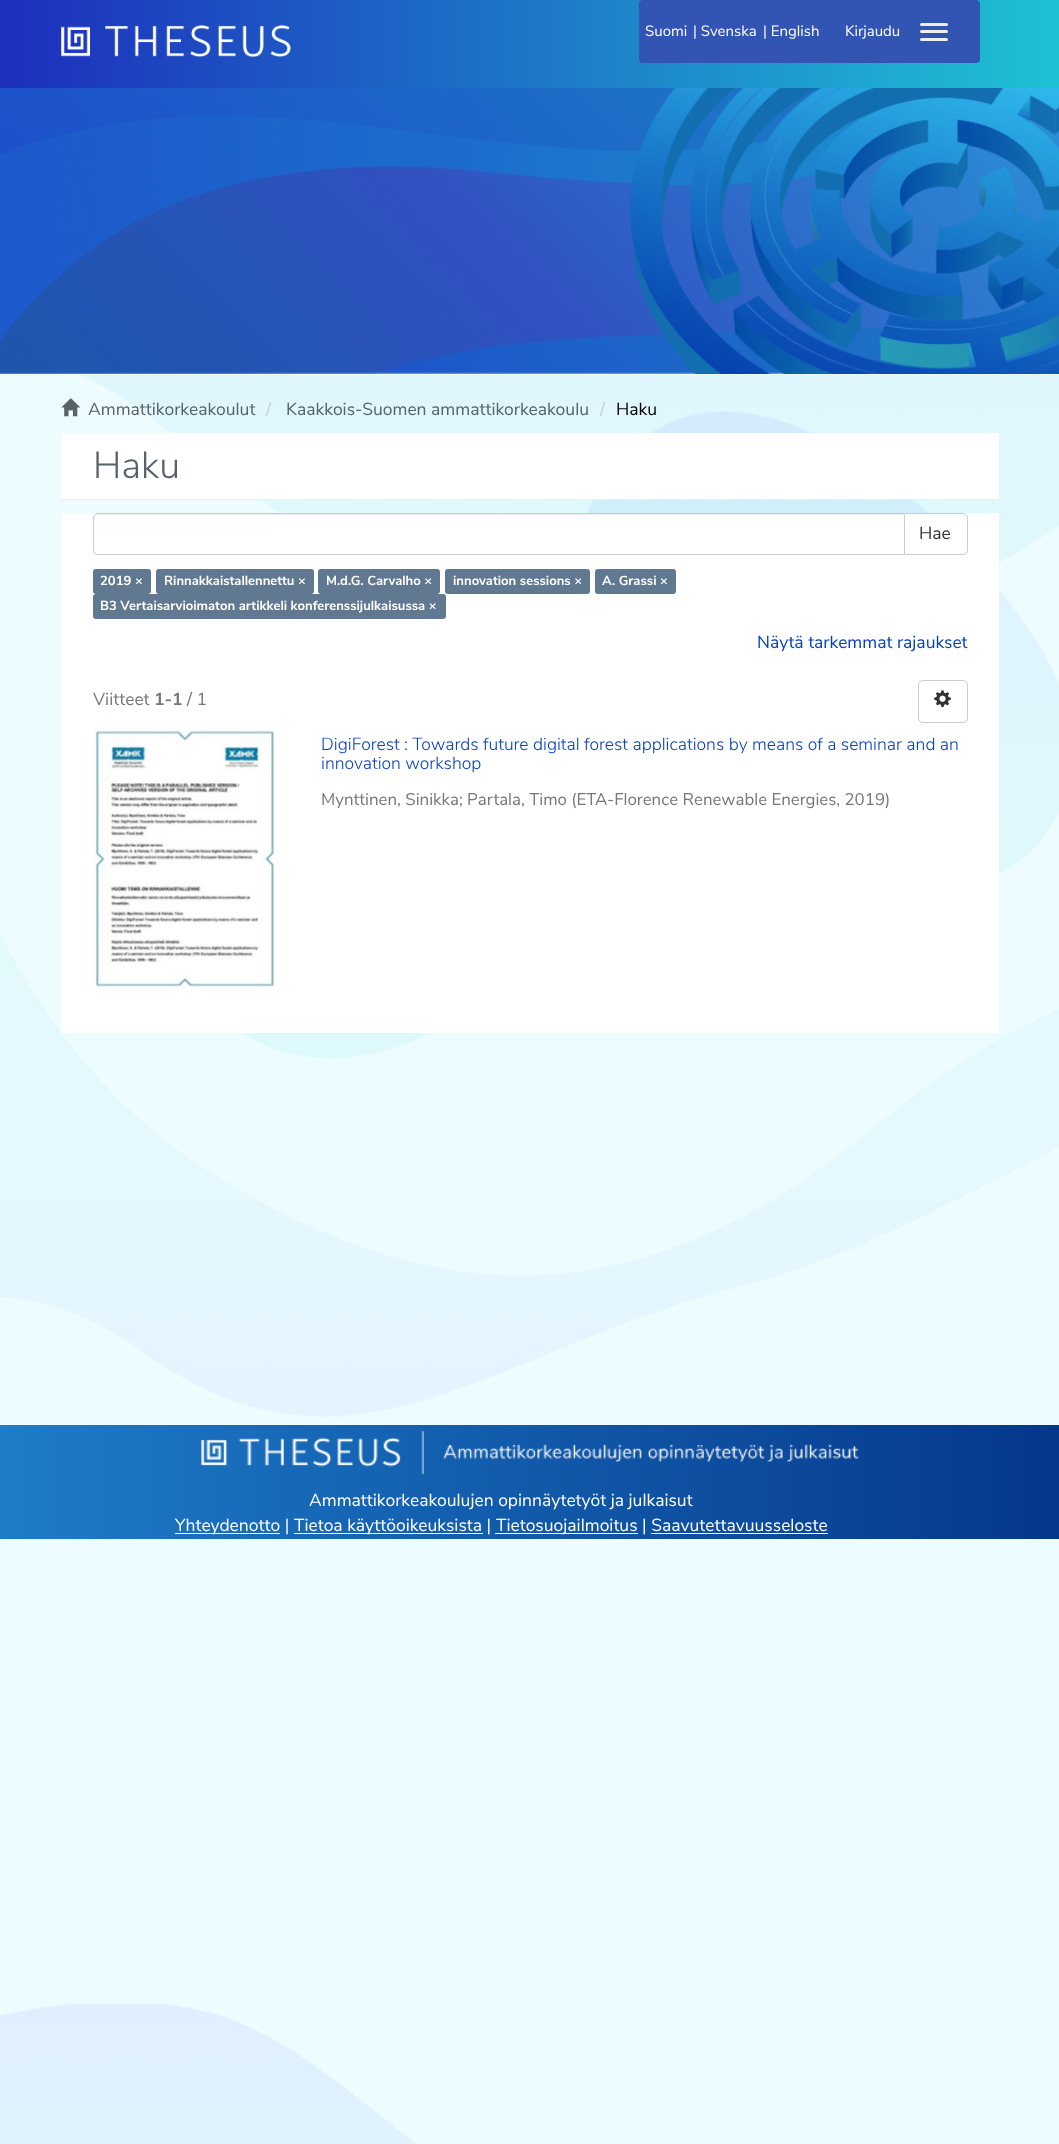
<!DOCTYPE html>
<meta charset="utf-8">
<style>body { margin: 0 } canvas { display: block }</style>
<canvas id="canvas" width="1059" height="2144"></canvas>
<img id="img1" src="images/1.png" hidden>
<img id="img2" src="images/2.png" hidden>
<img id="img3" src="images/3.png" hidden>
<img id="img4" src="images/4.png" hidden>
<img id="img5" src="images/5.png" hidden>
<img id="img6" src="images/6.png" hidden>
<img id="img7" src="images/7.png" hidden>
<script>
window.onload = function () {
    const canvas = document.getElementById('canvas');
    const context = canvas.getContext('2d');
    context.miterLimit = 4;
    context.fontKerning = 'normal';
    let gradient;

    context.fillStyle = 'rgb(237, 252, 255)';
    context.fillRect(0, 0, 1059, 2144);
    context.drawImage(document.getElementById('img1'), 0, 375, 1059, 1769);
    gradient = context.createLinearGradient(0, 44, 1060, 44);
    gradient.addColorStop(0, 'rgb(29, 46, 189)');
    gradient.addColorStop(1, 'rgb(30, 193, 212)');
    context.fillStyle = gradient;
    context.fillRect(0, 0, 1059, 88);
    context.drawImage(document.getElementById('img2'), 61, 25, 230, 32);
    context.fillStyle = 'rgb(50, 84, 179)';
    context.beginPath();
    context.roundRect(639, 0, 341, 63, 4);
    context.fill();
    context.fillStyle = 'rgb(238, 238, 238)';
    context.beginPath();
    context.roundRect(920, 23, 28, 3, 1.5);
    context.fill();
    context.beginPath();
    context.roundRect(920, 30, 28, 3, 1.5);
    context.fill();
    context.beginPath();
    context.roundRect(920, 38, 28, 3, 1.5);
    context.fill();
    context.fillStyle = 'rgb(170, 184, 198)';
    context.fillRect(0, 372, 1059, 2);
    context.drawImage(document.getElementById('img3'), 0, 88, 1059, 286);
    context.drawImage(document.getElementById('img4'), 61, 398, 19, 19);
    context.fillStyle = 'rgb(255, 255, 255)';
    context.fillRect(61, 433, 938, 66);
    context.fillStyle = 'rgb(238, 238, 238)';
    context.fillRect(61, 499, 938, 1);
    context.fillStyle = 'rgb(255, 255, 255)';
    context.fillRect(61, 513, 938, 520);
    context.beginPath();
    context.roundRect(904.5, 513.5, 63, 41, [0, 4.5, 4.5, 0]);
    context.strokeStyle = 'rgb(204, 204, 204)';
    context.stroke();
    context.beginPath();
    context.roundRect(93, 513, 812, 42, [5, 0, 0, 5]);
    context.fill();
    context.fillStyle = 'rgb(236, 236, 236)';
    context.beginPath();
    context.moveTo(98, 515);
    context.lineTo(904, 515);
    context.lineTo(904, 514);
    context.lineTo(98, 514);
    context.bezierCurveTo(95, 514, 94, 516, 94, 519);
    context.bezierCurveTo(94, 517, 95, 515, 98, 515);
    context.closePath();
    context.fill();
    context.beginPath();
    context.roundRect(93.5, 513.5, 811, 41, [4.5, 0, 0, 4.5]);
    context.stroke();
    context.fillStyle = 'rgb(96, 120, 144)';
    context.beginPath();
    context.roundRect(93, 569, 58, 25, 3);
    context.fill();
    context.beginPath();
    context.roundRect(156, 569, 158, 25, 3);
    context.fill();
    context.beginPath();
    context.roundRect(318, 569, 122, 25, 3);
    context.fill();
    context.beginPath();
    context.roundRect(445, 569, 145, 25, 3);
    context.fill();
    context.beginPath();
    context.roundRect(595, 569, 81, 25, 3);
    context.fill();
    context.beginPath();
    context.roundRect(93, 594, 353, 25, 3);
    context.fill();
    context.beginPath();
    context.roundRect(918.5, 680.5, 49, 42, 4.5);
    context.stroke();
    context.drawImage(document.getElementById('img5'), 934, 690, 17, 18);
    context.drawImage(document.getElementById('img6'), 92, 727, 183, 262);
    gradient = context.createLinearGradient(0, 1482, 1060, 1482);
    gradient.addColorStop(0, 'rgb(30, 124, 201)');
    gradient.addColorStop(1, 'rgb(5, 55, 139)');
    context.fillStyle = gradient;
    context.fillRect(0, 1425, 1059, 114);
    context.drawImage(document.getElementById('img7'), 201, 1431, 658, 43);
    context.fillStyle = 'rgb(255, 255, 255)';
    context.fillRect(175, 1533, 105, 1);
    context.fillRect(294, 1533, 189, 1);
    context.fillRect(495, 1533, 143, 1);
    context.fillRect(651, 1533, 177, 1);
    context.font = '15px Nunito Sans';
    context.fillText('Suomi', 645, 36);
    context.fillText('| Svenska', 693, 36);
    context.fillText('| English', 763, 36);
    context.fillText('Kirjaudu', 845, 36);
    context.font = '17.5px Nunito Sans';
    context.fillStyle = 'rgb(88, 98, 103)';
    context.fillText('Ammattikorkeakoulut', 88, 415);
    context.fillStyle = 'rgb(204, 204, 204)';
    context.fillText('/', 266, 415);
    context.fillStyle = 'rgb(88, 98, 103)';
    context.fillText('Kaakkois-Suomen ammattikorkeakoulu', 286, 415);
    context.fillStyle = 'rgb(204, 204, 204)';
    context.fillText('/', 600, 415);
    context.fillStyle = 'rgb(0, 0, 0)';
    context.fillText('Haku', 616, 415);
    context.font = '300 37.5px Nunito Sans';
    context.fillStyle = 'rgb(88, 98, 103)';
    context.fillText('Haku', 93, 478);
    context.font = '17.5px Nunito Sans';
    context.fillStyle = 'rgb(51, 51, 51)';
    context.fillText('Hae', 919, 539);
    context.font = 'bold 13.1px Nunito Sans';
    context.fillStyle = 'rgb(255, 255, 255)';
    context.fillText('2019 ×', 100, 585);
    context.fillText('Rinnakkaistallennettu ×', 164, 585);
    context.fillText('M.d.G. Carvalho ×', 326, 585);
    context.fillText('innovation sessions ×', 453, 585);
    context.fillText('A. Grassi ×', 602, 585);
    context.fillText('B3 Vertaisarvioimaton artikkeli konferenssijulkaisussa ×', 100, 610);
    context.font = '17.5px Nunito Sans';
    context.fillStyle = 'rgb(8, 65, 191)';
    context.fillText('Näytä tarkemmat rajaukset', 757, 648);
    context.fillStyle = 'rgb(119, 119, 119)';
    context.fillText('Viitteet', 93, 705);
    context.font = 'bold 17.5px Nunito Sans';
    context.fillText('1-1', 154, 705);
    context.font = '17.5px Nunito Sans';
    context.fillText('/ 1', 187, 705);
    context.font = '300 17.5px Nunito Sans';
    context.fillStyle = 'rgb(8, 65, 191)';
    context.fillText('DigiForest : Towards future digital forest applications by means of a seminar and an', 321, 750);
    context.fillText('innovation workshop', 321, 769);
    context.font = '16.9px Nunito Sans';
    context.fillStyle = 'rgb(119, 119, 119)';
    context.fillText('Mynttinen, Sinikka; Partala, Timo (ETA-Florence Renewable Energies, 2019)', 321, 805);
    context.font = '17.5px Nunito Sans';
    context.fillStyle = 'rgb(255, 255, 255)';
    context.fillText('Ammattikorkeakoulujen opinnäytetyöt ja julkaisut', 309, 1506);
    context.fillText('Yhteydenotto |', 175, 1531);
    context.fillText('Tietoa käyttöoikeuksista |', 294, 1531);
    context.fillText('Tietosuojailmoitus | Saavutettavuusseloste', 496, 1531);
};
</script>
